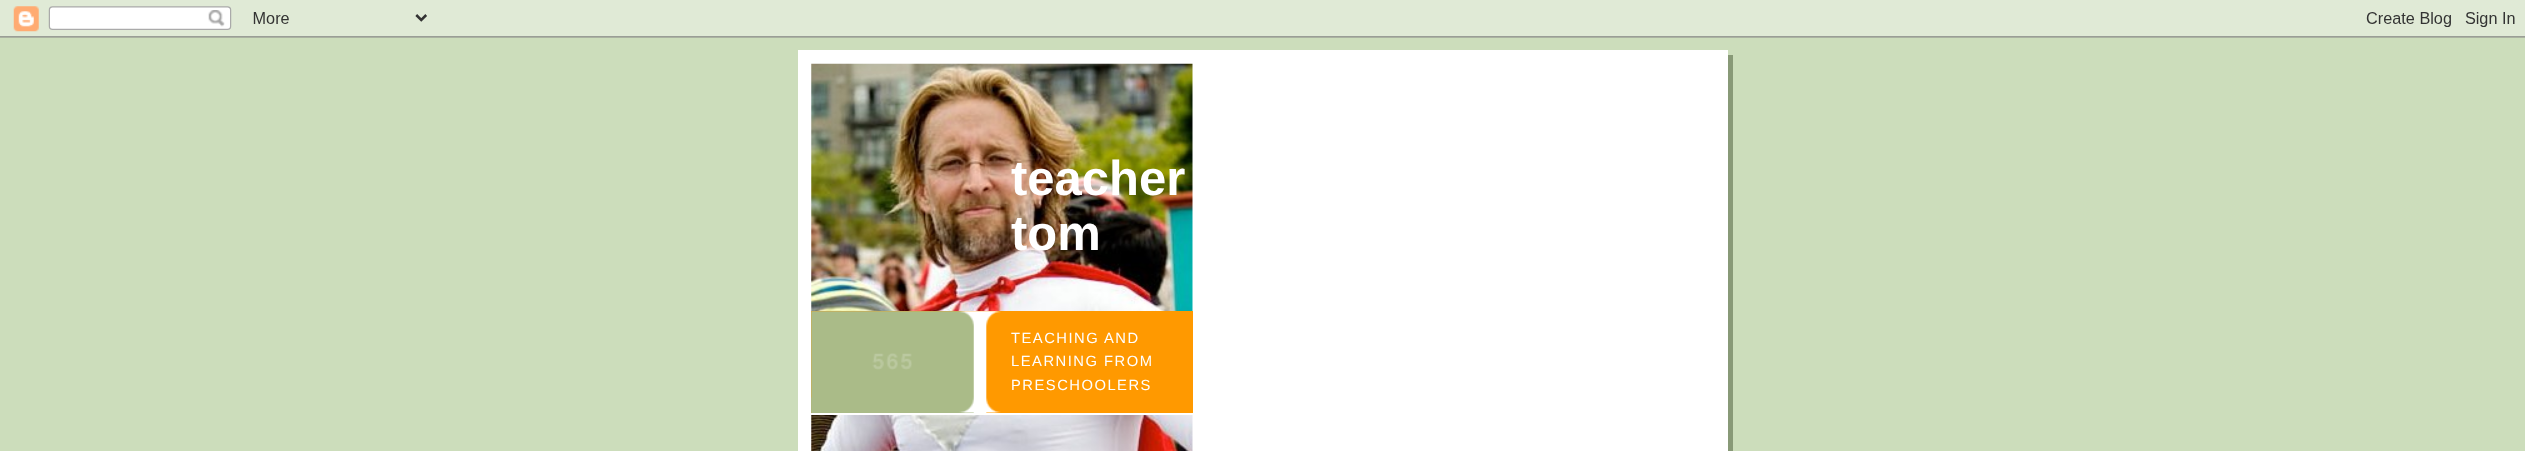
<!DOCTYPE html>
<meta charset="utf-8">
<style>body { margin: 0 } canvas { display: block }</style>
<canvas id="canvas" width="2525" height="451"></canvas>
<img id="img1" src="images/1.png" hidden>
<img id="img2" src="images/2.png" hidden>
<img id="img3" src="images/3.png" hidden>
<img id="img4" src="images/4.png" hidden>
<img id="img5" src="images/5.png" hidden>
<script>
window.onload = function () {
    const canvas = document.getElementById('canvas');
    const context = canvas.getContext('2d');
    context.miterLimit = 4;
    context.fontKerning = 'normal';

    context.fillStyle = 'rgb(204, 221, 187)';
    context.fillRect(0, 0, 2525, 451);
    context.drawImage(document.getElementById('img1'), 0, 0, 2525, 38);
    context.fillStyle = 'rgb(136, 153, 119)';
    context.fillRect(1728, 55, 5, 396);
    context.fillStyle = 'rgb(255, 255, 255)';
    context.fillRect(798, 50, 930, 401);
    context.drawImage(document.getElementById('img2'), 811, 63, 382, 388);
    context.fillStyle = 'rgb(255, 153, 0)';
    context.fillRect(811, 311, 382, 102);
    context.drawImage(document.getElementById('img3'), 811, 311, 190, 102);
    context.fillStyle = 'rgb(255, 255, 255)';
    context.fillRect(811, 413, 382, 2);
    context.drawImage(document.getElementById('img4'), 811, 397, 190, 16);
    context.drawImage(document.getElementById('img5'), 872, 353, 40, 17);
    context.font = 'bold 49px Liberation Sans';
    context.fillText('teacher', 1011, 195);
    context.fillText('tom', 1011, 250);
    context.letterSpacing = '1.5px';
    context.font = '14.75px Liberation Sans';
    context.fillText('TEACHING AND', 1011, 343);
    context.fillText('LEARNING FROM', 1011, 366);
    context.fillText('PRESCHOOLERS', 1011, 390);
};
</script>
